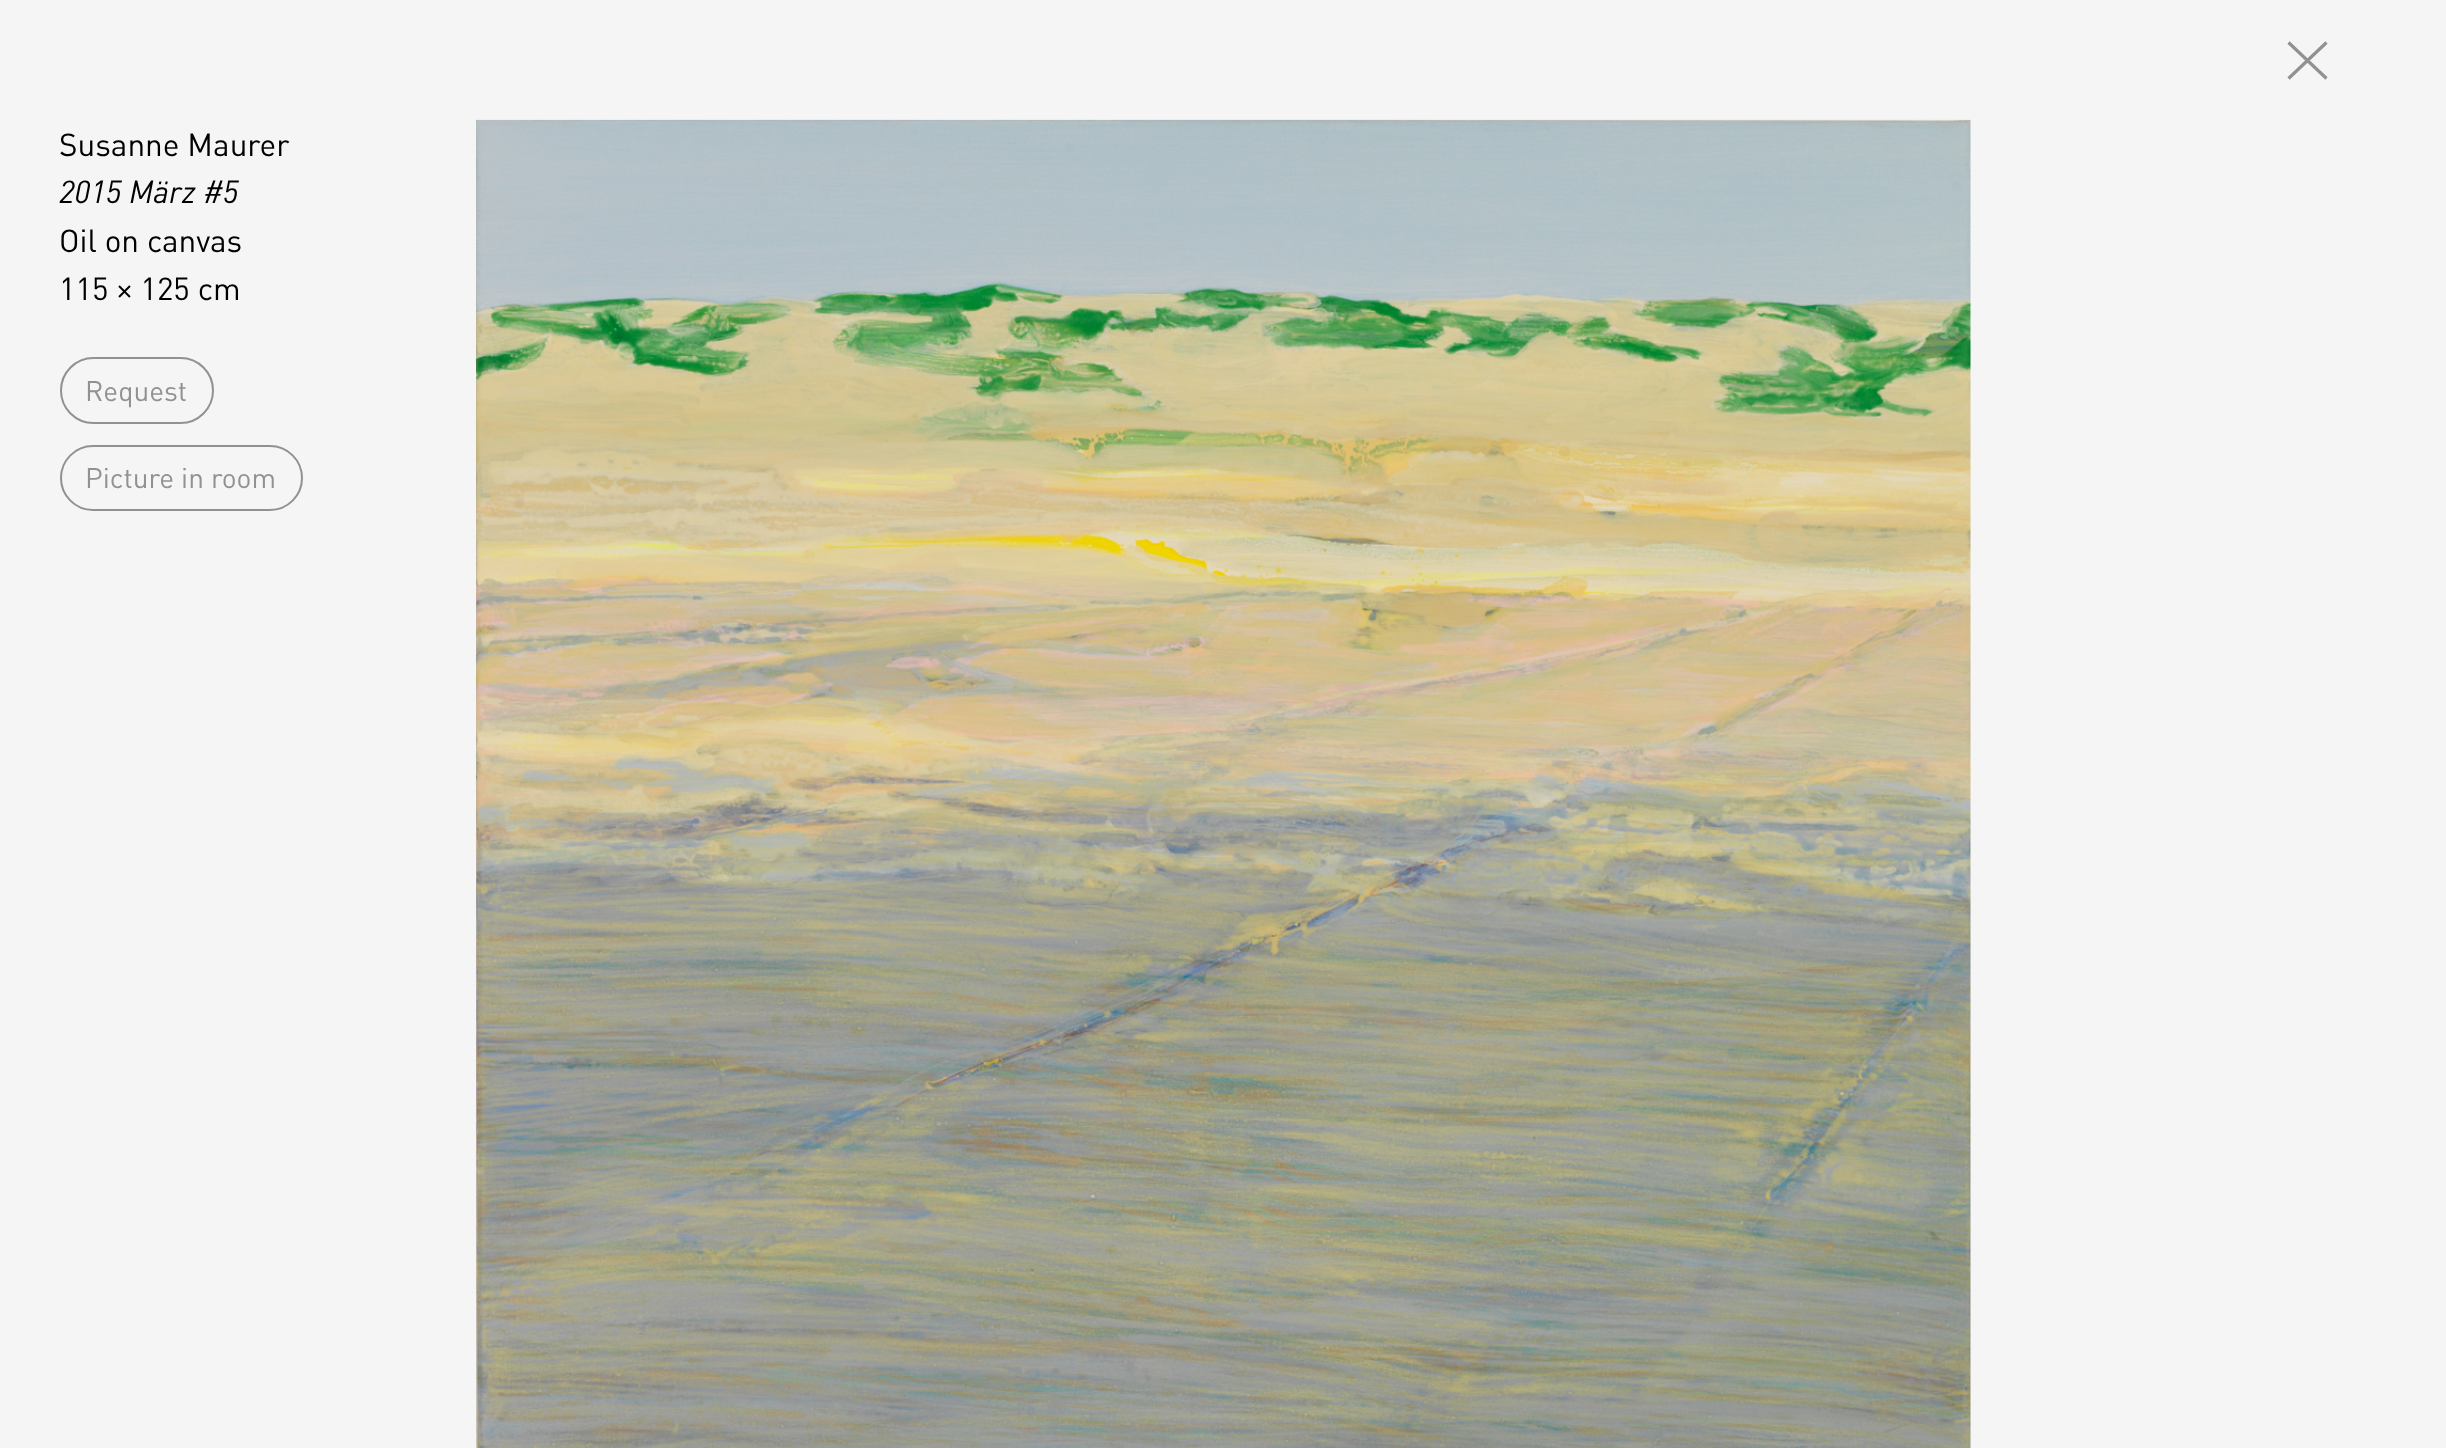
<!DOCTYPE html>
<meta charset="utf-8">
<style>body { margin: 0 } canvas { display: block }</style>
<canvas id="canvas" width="2446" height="1448"></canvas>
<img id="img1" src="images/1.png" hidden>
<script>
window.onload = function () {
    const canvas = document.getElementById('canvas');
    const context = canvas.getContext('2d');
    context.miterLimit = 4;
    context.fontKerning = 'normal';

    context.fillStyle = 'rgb(245, 245, 245)';
    context.fillRect(0, 0, 2446, 1448);
    context.beginPath();
    context.moveTo(2288.5, 42.5);
    context.lineTo(2326.5, 78.5);
    context.moveTo(2326.5, 42.5);
    context.lineTo(2288.5, 78.5);
    context.strokeStyle = 'rgb(147, 144, 144)';
    context.lineWidth = 3.2;
    context.stroke();
    context.beginPath();
    context.roundRect(61, 358, 152, 65, 32.5);
    context.lineWidth = 2;
    context.stroke();
    context.beginPath();
    context.roundRect(61, 446, 241, 64, 32);
    context.stroke();
    context.drawImage(document.getElementById('img1'), 476, 119, 1495, 1329);
    context.font = '31.5px DIN';
    context.fillStyle = 'rgb(0, 0, 0)';
    context.fillText('Susanne Maurer', 59, 156);
    context.font = 'italic 31.5px DIN';
    context.fillText('2015 März #5', 59, 203);
    context.font = '31.5px DIN';
    context.fillText('Oil on canvas', 59, 252);
    context.fillText('115 × 125 cm', 59, 300);
    context.font = '28px DIN';
    context.fillStyle = 'rgb(147, 144, 144)';
    context.fillText('Request', 85, 401);
    context.fillText('Picture in room', 85, 488);
};
</script>
